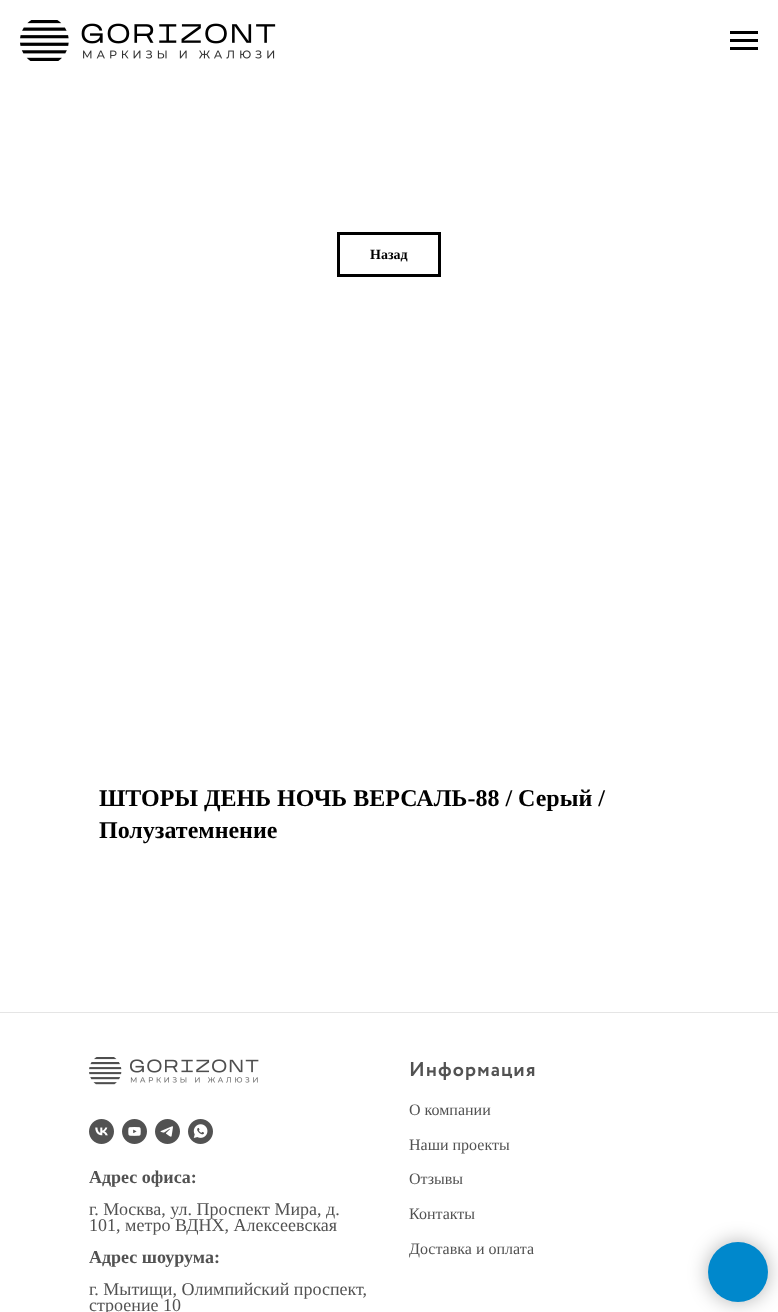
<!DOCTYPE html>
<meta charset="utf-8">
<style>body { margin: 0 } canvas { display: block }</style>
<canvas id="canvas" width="778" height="1312"></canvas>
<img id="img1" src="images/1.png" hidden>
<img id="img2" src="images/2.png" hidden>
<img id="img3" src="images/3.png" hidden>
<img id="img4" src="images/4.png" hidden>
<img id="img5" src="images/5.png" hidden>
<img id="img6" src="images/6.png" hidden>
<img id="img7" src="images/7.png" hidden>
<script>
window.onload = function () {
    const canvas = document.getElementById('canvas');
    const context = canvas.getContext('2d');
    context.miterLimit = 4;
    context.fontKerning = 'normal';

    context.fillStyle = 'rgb(255, 255, 255)';
    context.fillRect(0, 0, 778, 1312);
    context.drawImage(document.getElementById('img1'), 20, 20, 256, 41);
    context.fillStyle = 'rgb(0, 0, 0)';
    context.fillRect(730, 31, 28, 3);
    context.fillRect(730, 39, 28, 3);
    context.fillRect(730, 47, 28, 3);
    context.strokeStyle = 'rgb(0, 0, 0)';
    context.lineWidth = 3;
    context.strokeRect(338.5, 233.5, 101, 42);
    context.fillStyle = 'rgb(229, 229, 229)';
    context.fillRect(0, 1012, 778, 1);
    context.drawImage(document.getElementById('img2'), 89, 1057, 170, 28);
    context.drawImage(document.getElementById('img3'), 89, 1119, 25, 25);
    context.drawImage(document.getElementById('img4'), 122, 1119, 25, 25);
    context.drawImage(document.getElementById('img5'), 155, 1119, 25, 25);
    context.drawImage(document.getElementById('img6'), 188, 1119, 25, 25);
    context.drawImage(document.getElementById('img7'), 410, 1062, 125, 18);
    context.fillStyle = 'rgba(0, 0, 0, 0.3)';
    context.filter = 'blur(10px)';
    context.beginPath();
    context.roundRect(708, 1242, 60, 60, 30);
    context.fill();
    context.filter = 'none';
    context.fillStyle = 'rgb(0, 136, 204)';
    context.beginPath();
    context.arc(738, 1272, 30, 0, 2 * Math.PI);
    context.fill();
    context.font = 'bold 14px Liberation Serif';
    context.fillStyle = 'rgb(0, 0, 0)';
    context.fillText('Назад', 370, 259);
    context.font = 'bold 24px Liberation Serif';
    context.fillText('ШТОРЫ ДЕНЬ НОЧЬ ВЕРСАЛЬ-88 / Серый /', 99, 806);
    context.fillText('Полузатемнение', 99, 838);
    context.font = 'bold 18px Liberation Serif';
    context.fillStyle = 'rgb(82, 82, 82)';
    context.fillText('Адрес офиса:', 89, 1183);
    context.font = '18px Liberation Serif';
    context.fillText('г. Москва, ул. Проспект Мира, д.', 89, 1215);
    context.fillText('101, метро ВДНХ, Алексеевская', 89, 1231);
    context.font = 'bold 18px Liberation Serif';
    context.fillText('Адрес шоурума:', 89, 1263);
    context.font = '18px Liberation Serif';
    context.fillText('г. Мытищи, Олимпийский проспект,', 89, 1295);
    context.fillText('строение 10', 89, 1311);
    context.font = '16px Liberation Serif';
    context.fillText('О компании', 409, 1115);
    context.fillText('Наши проекты', 409, 1150);
    context.fillText('Отзывы', 409, 1184);
    context.fillText('Контакты', 409, 1219);
    context.fillText('Доставка и оплата', 409, 1254);
};
</script>
